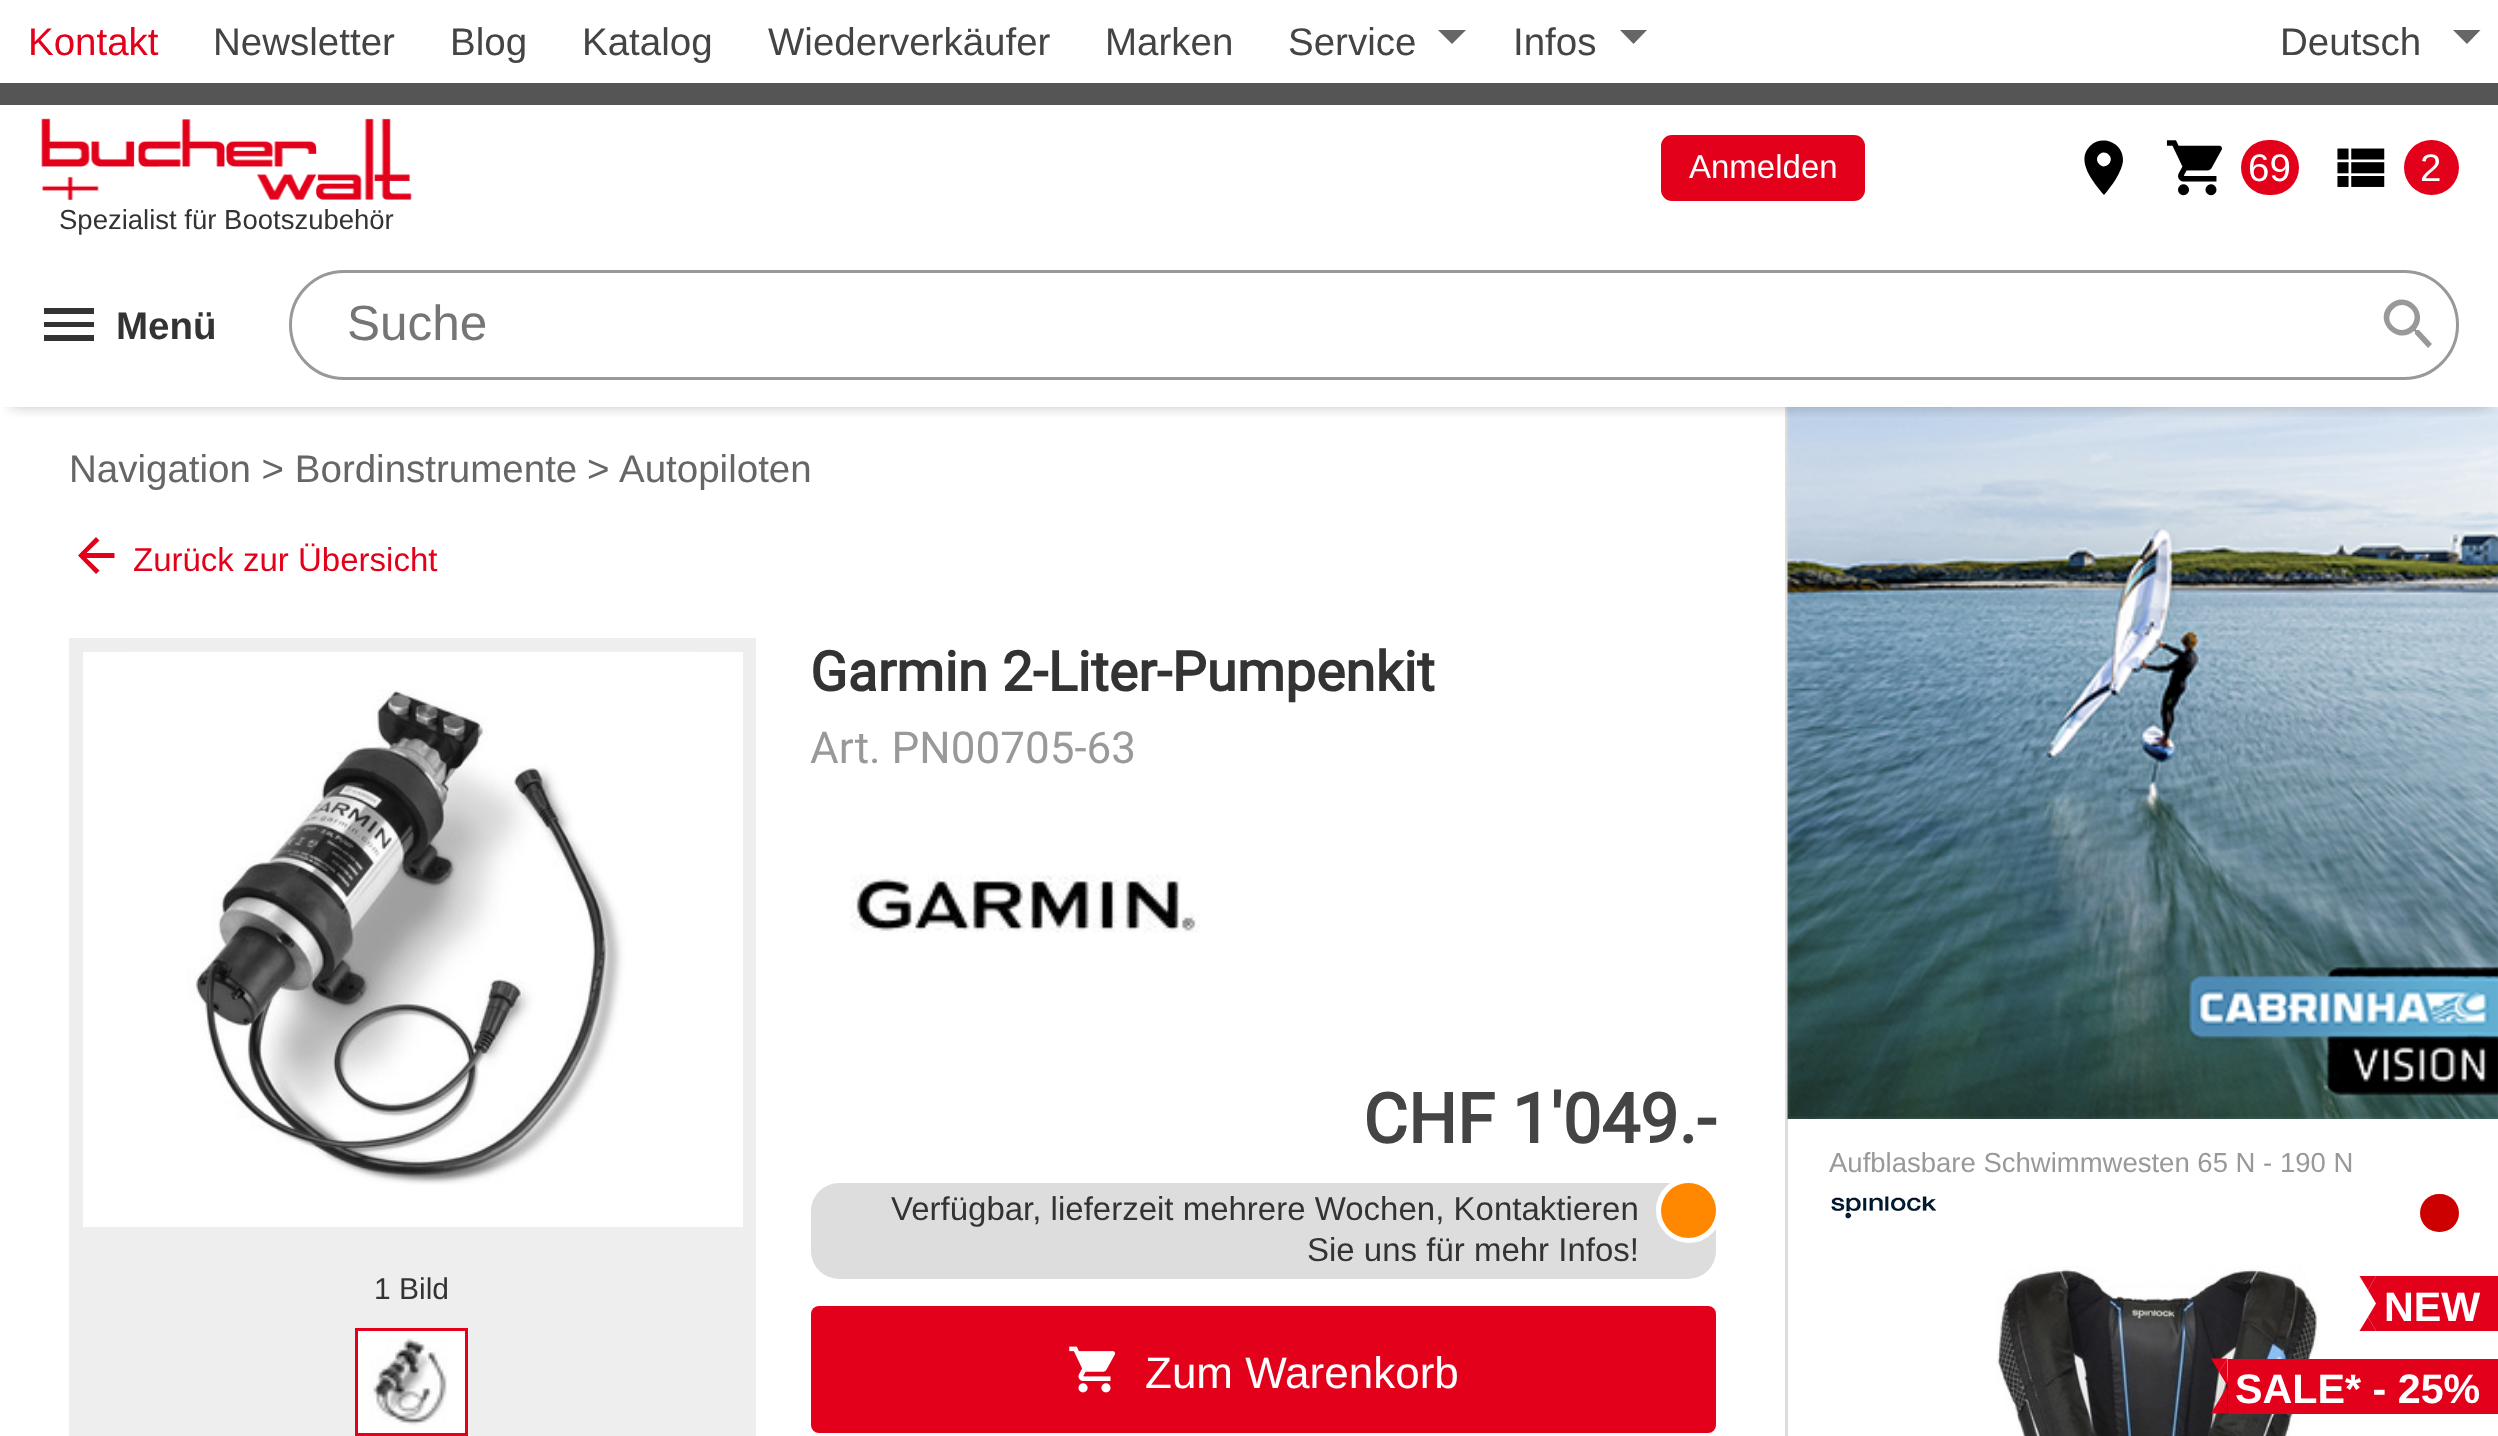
<!DOCTYPE html>
<meta charset="utf-8">
<style>body { margin: 0 } canvas { display: block }</style>
<canvas id="canvas" width="2498" height="1436"></canvas>
<img id="img1" src="images/8.png" hidden>
<img id="img2" src="images/1.png" hidden>
<img id="img3" src="images/2.png" hidden>
<img id="img4" src="images/3.png" hidden>
<img id="img5" src="images/4.png" hidden>
<img id="img6" src="images/5.png" hidden>
<img id="img7" src="images/6.png" hidden>
<img id="img8" src="images/7.png" hidden>
<img id="img9" src="images/9.png" hidden>
<img id="img10" src="images/10.png" hidden>
<script>
window.onload = function () {
    const canvas = document.getElementById('canvas');
    const context = canvas.getContext('2d');
    context.miterLimit = 4;
    context.fontKerning = 'normal';

    context.fillStyle = 'rgb(255, 255, 255)';
    context.fillRect(0, 0, 2498, 1436);
    context.fillStyle = 'rgb(221, 221, 221)';
    context.fillRect(1785, 407, 3, 1029);
    context.drawImage(document.getElementById('img1'), 1787, 407, 711, 713);
    context.save();
    context.beginPath();
    context.rect(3, 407, 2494, 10);
    context.clip();
    context.fillStyle = 'rgba(0, 0, 0, 0.35)';
    context.filter = 'blur(8px)';
    context.beginPath();
    context.rect(11, 124, 2478, 280);
    context.fill();
    context.filter = 'none';
    context.restore();
    context.fillStyle = 'rgb(85, 85, 85)';
    context.fillRect(0, 83, 2498, 22);
    context.fillStyle = 'rgb(102, 102, 102)';
    context.beginPath();
    context.moveTo(1438, 30);
    context.lineTo(1466, 30);
    context.lineTo(1452, 44);
    context.closePath();
    context.fill();
    context.beginPath();
    context.moveTo(1620, 30);
    context.lineTo(1647, 30);
    context.lineTo(1633.5, 44);
    context.closePath();
    context.fill();
    context.beginPath();
    context.moveTo(2453, 30);
    context.lineTo(2480.5, 30);
    context.lineTo(2467, 44);
    context.closePath();
    context.fill();
    context.fillStyle = 'rgb(227, 0, 27)';
    context.beginPath();
    context.roundRect(1661, 135, 204, 66, 11);
    context.fill();
    context.fillStyle = 'rgb(0, 0, 0)';
    context.beginPath();
    context.moveTo(2099, 164);
    context.bezierCurveTo(2105, 171, 2115, 161, 2109, 155);
    context.bezierCurveTo(2102, 148, 2093, 158, 2099, 164);
    context.closePath();
    context.moveTo(2090, 146);
    context.bezierCurveTo(2102, 134, 2124, 143, 2123, 161);
    context.bezierCurveTo(2122, 172, 2111, 187, 2104, 195);
    context.bezierCurveTo(2094, 183, 2075, 161, 2090, 146);
    context.closePath();
    context.fill();
    context.drawImage(document.getElementById('img2'), 2166, 140, 56, 56);
    context.fillStyle = 'rgb(227, 0, 27)';
    context.beginPath();
    context.roundRect(2241, 140, 58, 55, 27.5);
    context.fill();
    context.drawImage(document.getElementById('img3'), 2337, 148, 48, 39);
    context.beginPath();
    context.arc(2431.5, 167.5, 27.5, 0, 2 * Math.PI);
    context.fill();
    context.drawImage(document.getElementById('img4'), 41, 118, 371, 82);
    context.fillStyle = 'rgb(51, 51, 51)';
    context.beginPath();
    context.moveTo(44, 308);
    context.lineTo(94, 308);
    context.lineTo(94, 314);
    context.lineTo(44, 314);
    context.closePath();
    context.moveTo(44, 327);
    context.lineTo(44, 322);
    context.lineTo(94, 322);
    context.lineTo(94, 327);
    context.closePath();
    context.moveTo(44, 341);
    context.lineTo(44, 335);
    context.lineTo(94, 335);
    context.lineTo(94, 341);
    context.closePath();
    context.fill();
    context.beginPath();
    context.roundRect(290.5, 271.5, 2167, 107, 53.5);
    context.strokeStyle = 'rgb(153, 153, 153)';
    context.lineWidth = 3;
    context.stroke();
    context.fillStyle = 'rgb(153, 153, 153)';
    context.beginPath();
    context.moveTo(2393, 326);
    context.bezierCurveTo(2405, 338, 2422, 320, 2411, 309);
    context.bezierCurveTo(2399, 297, 2382, 315, 2393, 326);
    context.closePath();
    context.moveTo(2419, 330);
    context.lineTo(2432, 344);
    context.lineTo(2428, 348);
    context.lineTo(2415, 334);
    context.lineTo(2415, 332);
    context.lineTo(2414, 331);
    context.bezierCurveTo(2397, 346, 2373, 321, 2389, 305);
    context.bezierCurveTo(2406, 289, 2430, 312, 2416, 329);
    context.lineTo(2416, 330);
    context.closePath();
    context.fill();
    context.fillStyle = 'rgb(227, 0, 27)';
    context.beginPath();
    context.moveTo(114.5, 553);
    context.lineTo(114.5, 558);
    context.lineTo(86.5, 558);
    context.lineTo(99.5, 570.5);
    context.lineTo(96, 574);
    context.lineTo(78, 555.5);
    context.lineTo(96, 537);
    context.lineTo(99.5, 540.5);
    context.lineTo(86.5, 553);
    context.closePath();
    context.fill();
    context.fillStyle = 'rgb(238, 238, 238)';
    context.fillRect(69, 638, 687, 798);
    context.fillStyle = 'rgb(255, 255, 255)';
    context.fillRect(83, 652, 660, 575);
    context.drawImage(document.getElementById('img5'), 124, 651, 574, 534);
    context.beginPath();
    context.rect(356.5, 1329.5, 110, 105);
    context.fill();
    context.strokeStyle = 'rgb(227, 0, 27)';
    context.stroke();
    context.drawImage(document.getElementById('img6'), 369, 1338, 79, 88);
    context.drawImage(document.getElementById('img7'), 850, 874, 350, 59);
    context.fillStyle = 'rgb(221, 221, 221)';
    context.beginPath();
    context.roundRect(811, 1183, 905, 96, 28);
    context.fill();
    context.beginPath();
    context.arc(1689, 1210, 30, 0, 2 * Math.PI);
    context.strokeStyle = 'rgb(255, 255, 255)';
    context.lineWidth = 6;
    context.stroke();
    context.fillStyle = 'rgb(255, 136, 0)';
    context.beginPath();
    context.arc(1688.5, 1210.5, 27.5, 0, 2 * Math.PI);
    context.fill();
    context.fillStyle = 'rgb(227, 0, 27)';
    context.beginPath();
    context.roundRect(811, 1306, 905, 127, 8);
    context.fill();
    context.drawImage(document.getElementById('img8'), 1069, 1346, 47, 47);
    context.fillStyle = 'rgb(255, 255, 255)';
    context.fillRect(1788, 1119, 710, 1);
    context.drawImage(document.getElementById('img9'), 1831, 1196, 105, 23);
    context.fillStyle = 'rgb(204, 0, 0)';
    context.beginPath();
    context.roundRect(2420, 1194, 39, 38, 19);
    context.fill();
    context.drawImage(document.getElementById('img10'), 1996, 1266, 323, 170);
    context.fillStyle = 'rgb(227, 0, 27)';
    context.fillRect(2376, 1276, 122, 55);
    context.beginPath();
    context.moveTo(2359.5, 1276);
    context.lineTo(2376, 1276);
    context.lineTo(2368, 1290);
    context.closePath();
    context.fill();
    context.beginPath();
    context.moveTo(2376, 1276);
    context.lineTo(2376, 1303.5);
    context.lineTo(2368, 1290);
    context.closePath();
    context.fill();
    context.beginPath();
    context.moveTo(2376, 1303.5);
    context.lineTo(2376, 1331);
    context.lineTo(2368, 1317);
    context.closePath();
    context.fill();
    context.beginPath();
    context.moveTo(2376, 1331);
    context.lineTo(2359.5, 1331);
    context.lineTo(2368, 1317);
    context.closePath();
    context.fill();
    context.fillRect(2228, 1359, 270, 55);
    context.beginPath();
    context.moveTo(2211, 1358.5);
    context.lineTo(2227.5, 1358.5);
    context.lineTo(2219, 1372);
    context.closePath();
    context.fill();
    context.beginPath();
    context.moveTo(2227.5, 1358.5);
    context.lineTo(2227.5, 1386);
    context.lineTo(2219, 1372);
    context.closePath();
    context.moveTo(2227.5, 1386);
    context.lineTo(2227.5, 1413.5);
    context.lineTo(2219, 1400);
    context.closePath();
    context.fill();
    context.beginPath();
    context.moveTo(2227.5, 1413.5);
    context.lineTo(2211, 1413.5);
    context.lineTo(2219, 1400);
    context.closePath();
    context.fill();
    context.font = '38.5px Liberation Sans';
    context.fillText('Kontakt', 28, 55);
    context.fillStyle = 'rgb(68, 68, 68)';
    context.fillText('Newsletter', 213, 55);
    context.fillText('Blog', 450, 55);
    context.fillText('Katalog', 582, 55);
    context.fillText('Wiederverkäufer', 768, 55);
    context.fillText('Marken', 1105, 55);
    context.fillText('Service', 1288, 55);
    context.fillText('Infos', 1513, 55);
    context.fillText('Deutsch', 2280, 55);
    context.font = '33px Liberation Sans';
    context.fillStyle = 'rgb(255, 255, 255)';
    context.fillText('Anmelden', 1689, 178);
    context.font = '38.5px Liberation Sans';
    context.fillText('69', 2248, 181);
    context.fillText('2', 2420, 181);
    context.font = '27.5px Liberation Sans';
    context.fillStyle = 'rgb(51, 51, 51)';
    context.fillText('Spezialist für Bootszubehör', 59, 229);
    context.font = 'bold 38.5px Liberation Sans';
    context.fillText('Menü', 116, 339);
    context.font = '49.5px Liberation Sans';
    context.fillStyle = 'rgb(117, 117, 117)';
    context.fillText('Suche', 347, 340);
    context.font = '38.5px Liberation Sans';
    context.fillStyle = 'rgb(102, 102, 102)';
    context.fillText('Navigation > Bordinstrumente', 69, 482);
    context.fillText('>', 587, 482);
    context.fillText('Autopiloten', 619, 482);
    context.font = '33px Liberation Sans';
    context.fillStyle = 'rgb(227, 0, 27)';
    context.fillText('Zurück zur Übersicht', 133, 571);
    context.font = '30px Liberation Sans';
    context.fillStyle = 'rgb(51, 51, 51)';
    context.fillText('1 Bild', 374, 1299);
    context.font = 'bold 55px Roboto';
    context.fillText('Garmin 2-Liter-Pumpenkit', 810, 691);
    context.font = '44px Roboto';
    context.fillStyle = 'rgb(153, 153, 153)';
    context.fillText('Art. PN00705-63', 810, 763);
    context.font = 'bold 68.75px Roboto';
    context.fillStyle = 'rgb(68, 68, 68)';
    context.fillText('CHF 1\'049.-', 1363, 1143);
    context.font = '33px Liberation Sans';
    context.fillStyle = 'rgb(51, 51, 51)';
    context.fillText('Verfügbar, lieferzeit mehrere Wochen, Kontaktieren', 891, 1220);
    context.fillText('Sie uns für mehr Infos!', 1307, 1261);
    context.font = '44px Liberation Sans';
    context.fillStyle = 'rgb(255, 255, 255)';
    context.fillText('Zum Warenkorb', 1145, 1388);
    context.font = '27.5px Liberation Sans';
    context.fillStyle = 'rgb(153, 153, 153)';
    context.fillText('Aufblasbare Schwimmwesten 65 N - 190 N', 1829, 1172);
    context.font = 'bold 41.25px Liberation Sans';
    context.fillStyle = 'rgb(255, 255, 255)';
    context.fillText('NEW', 2384, 1321);
    context.fillText('SALE* - 25%', 2235, 1403);
};
</script>
